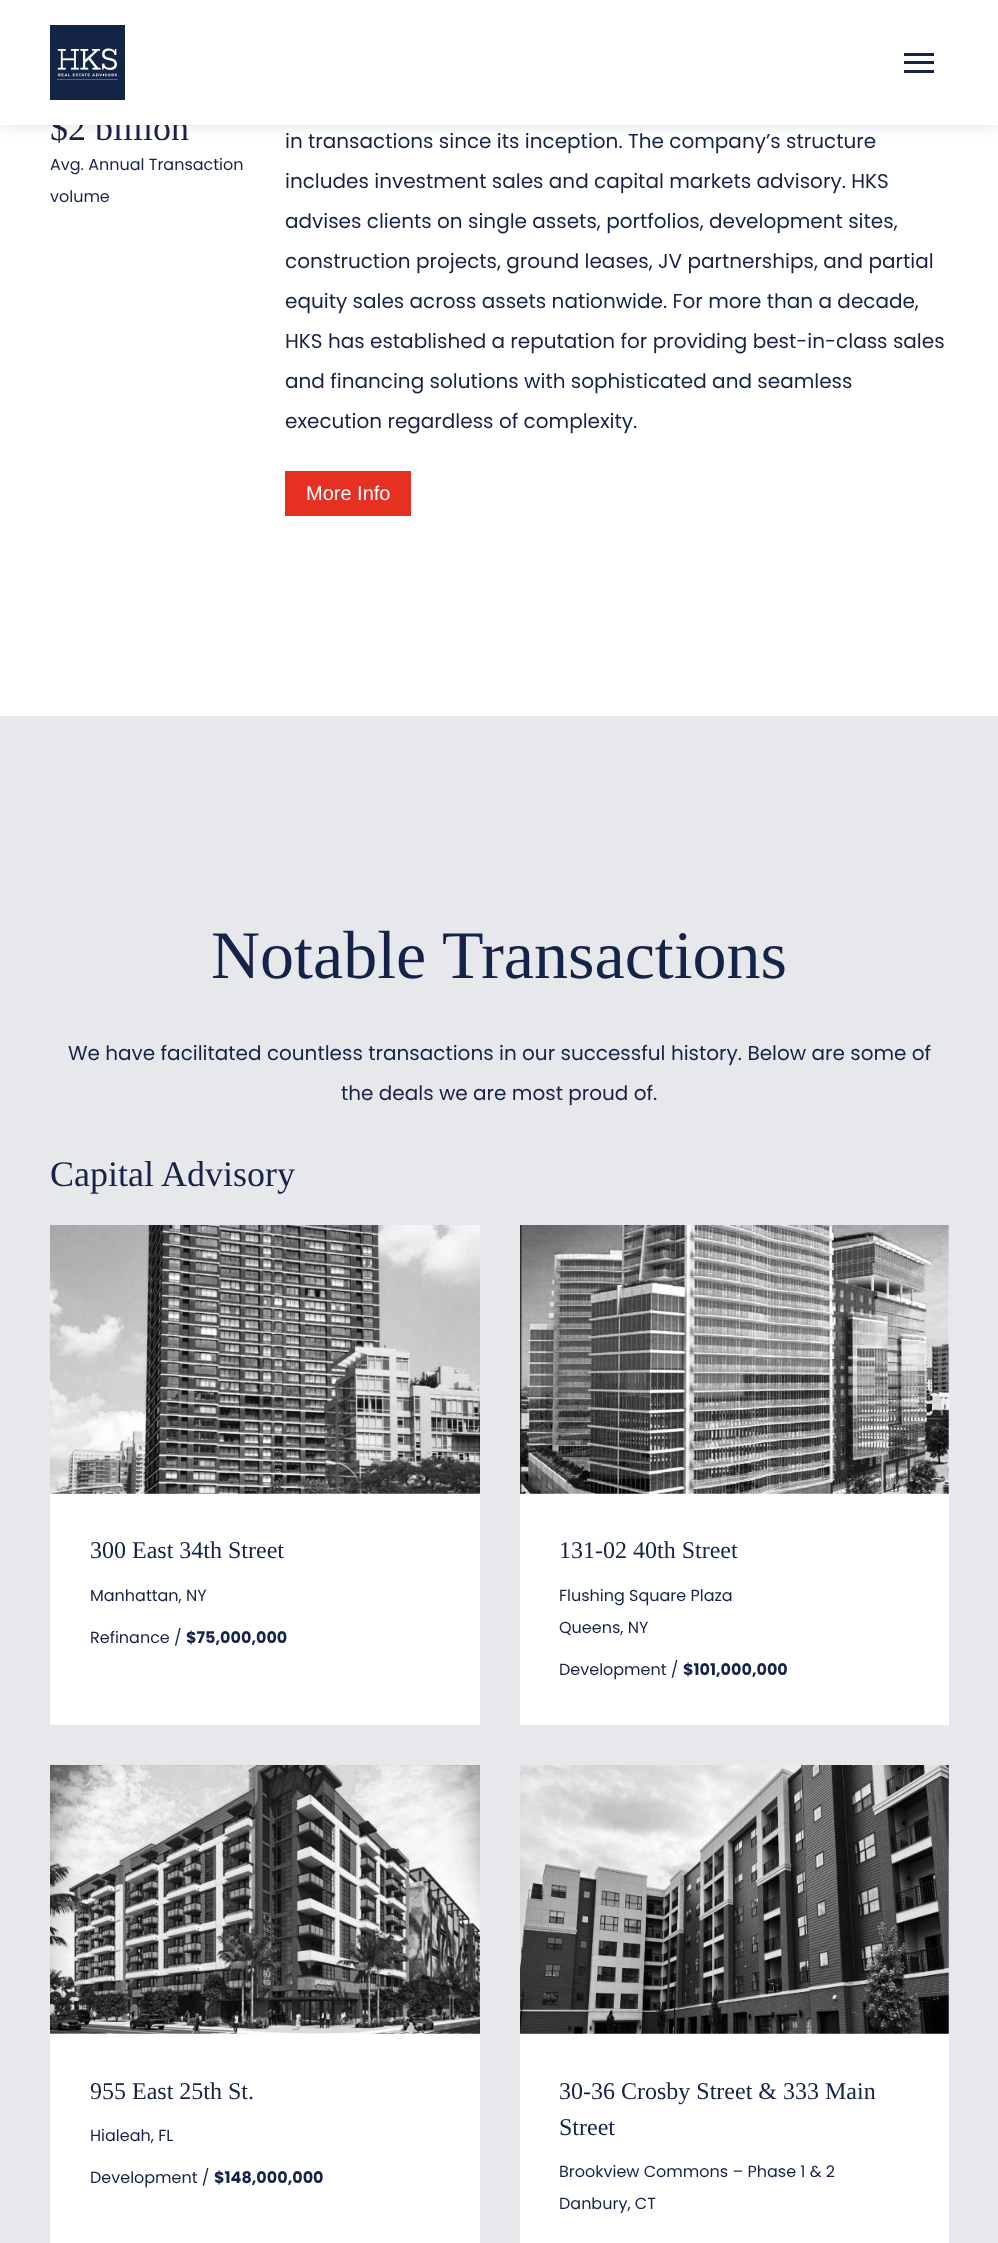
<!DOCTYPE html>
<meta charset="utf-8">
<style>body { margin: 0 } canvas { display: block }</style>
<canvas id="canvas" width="998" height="2243"></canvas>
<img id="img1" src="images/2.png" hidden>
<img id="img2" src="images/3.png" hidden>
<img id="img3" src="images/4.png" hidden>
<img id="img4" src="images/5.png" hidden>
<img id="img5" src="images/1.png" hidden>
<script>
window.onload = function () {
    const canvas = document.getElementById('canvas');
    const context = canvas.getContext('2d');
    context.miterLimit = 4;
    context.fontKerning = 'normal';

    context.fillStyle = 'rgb(255, 255, 255)';
    context.fillRect(0, 0, 998, 2243);
    context.fillStyle = 'rgba(21, 35, 72, 0.1)';
    context.filter = 'blur(6px)';
    context.beginPath();
    context.rect(0, 3, 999, 125);
    context.fill();
    context.filter = 'none';
    context.fillStyle = 'rgb(230, 49, 34)';
    context.fillRect(285, 471, 126, 45);
    context.fillStyle = 'rgb(231, 232, 236)';
    context.fillRect(0, 716, 998, 1527);
    context.fillStyle = 'rgb(255, 255, 255)';
    context.fillRect(50, 1493, 430, 232);
    context.drawImage(document.getElementById('img1'), 50, 1225, 430, 269);
    context.fillRect(520, 1225, 429, 500);
    context.drawImage(document.getElementById('img2'), 520, 1225, 429, 269);
    context.fillRect(50, 2033, 430, 210);
    context.drawImage(document.getElementById('img3'), 50, 1765, 430, 269);
    context.fillRect(520, 1765, 429, 478);
    context.drawImage(document.getElementById('img4'), 520, 1765, 429, 269);
    context.font = '36px Liberation Serif';
    context.fillStyle = 'rgb(21, 35, 72)';
    context.fillText('$2 billion', 50, 140);
    context.fillStyle = 'rgb(255, 255, 255)';
    context.fillRect(0, 0, 998, 125);
    context.fillStyle = 'rgb(21, 35, 72)';
    context.fillRect(904, 70, 30, 3);
    context.fillRect(904, 61, 30, 3);
    context.fillRect(904, 53, 30, 3);
    context.drawImage(document.getElementById('img5'), 50, 25, 75, 75);
    context.font = '16px Poppins';
    context.fillText('Avg. Annual Transaction', 50, 170);
    context.fillText('volume', 50, 202);
    context.font = '20px Poppins';
    context.fillText('in transactions since its inception. The company’s structure', 285, 148);
    context.fillText('includes investment sales and capital markets advisory. HKS', 285, 188);
    context.fillText('advises clients on single assets, portfolios, development sites,', 285, 228);
    context.fillText('construction projects, ground leases, JV partnerships, and partial', 285, 268);
    context.fillText('equity sales across assets nationwide. For more than a decade,', 285, 308);
    context.fillText('HKS has established a reputation for providing best-in-class sales', 285, 348);
    context.fillText('and financing solutions with sophisticated and seamless', 285, 388);
    context.fillText('execution regardless of complexity.', 285, 428);
    context.font = '20px Liberation Sans';
    context.fillStyle = 'rgb(255, 255, 255)';
    context.fillText('More Info', 306, 500);
    context.font = '68px Liberation Serif';
    context.fillStyle = 'rgb(21, 35, 72)';
    context.fillText('Notable Transactions', 211, 978);
    context.font = '20px Poppins';
    context.fillText('We have facilitated countless transactions in our successful history. Below are some of', 68, 1060);
    context.fillText('the deals we are most proud of.', 341, 1100);
    context.font = '36px Liberation Serif';
    context.fillText('Capital Advisory', 50, 1186);
    context.font = '24px Liberation Serif';
    context.fillText('300 East 34th Street', 90, 1558);
    context.font = '16px Poppins';
    context.fillText('Manhattan, NY', 90, 1601);
    context.fillText('Refinance /', 90, 1643);
    context.font = 'bold 16px Poppins';
    context.fillText('$75,000,000', 186, 1643);
    context.font = '24px Liberation Serif';
    context.fillText('131-02 40th Street', 559, 1558);
    context.font = '16px Poppins';
    context.fillText('Flushing Square Plaza', 559, 1601);
    context.fillText('Queens, NY', 559, 1633);
    context.fillText('Development /', 559, 1675);
    context.font = 'bold 16px Poppins';
    context.fillText('$101,000,000', 683, 1675);
    context.font = '24px Liberation Serif';
    context.fillText('955 East 25th St.', 90, 2099);
    context.font = '16px Poppins';
    context.fillText('Hialeah, FL', 90, 2141);
    context.fillText('Development /', 90, 2183);
    context.font = 'bold 16px Poppins';
    context.fillText('$148,000,000', 214, 2183);
    context.font = '24px Liberation Serif';
    context.fillText('30-36 Crosby Street & 333 Main', 559, 2099);
    context.fillText('Street', 559, 2135);
    context.font = '16px Poppins';
    context.fillText('Brookview Commons – Phase 1 & 2', 559, 2177);
    context.fillText('Danbury, CT', 559, 2209);
};
</script>
